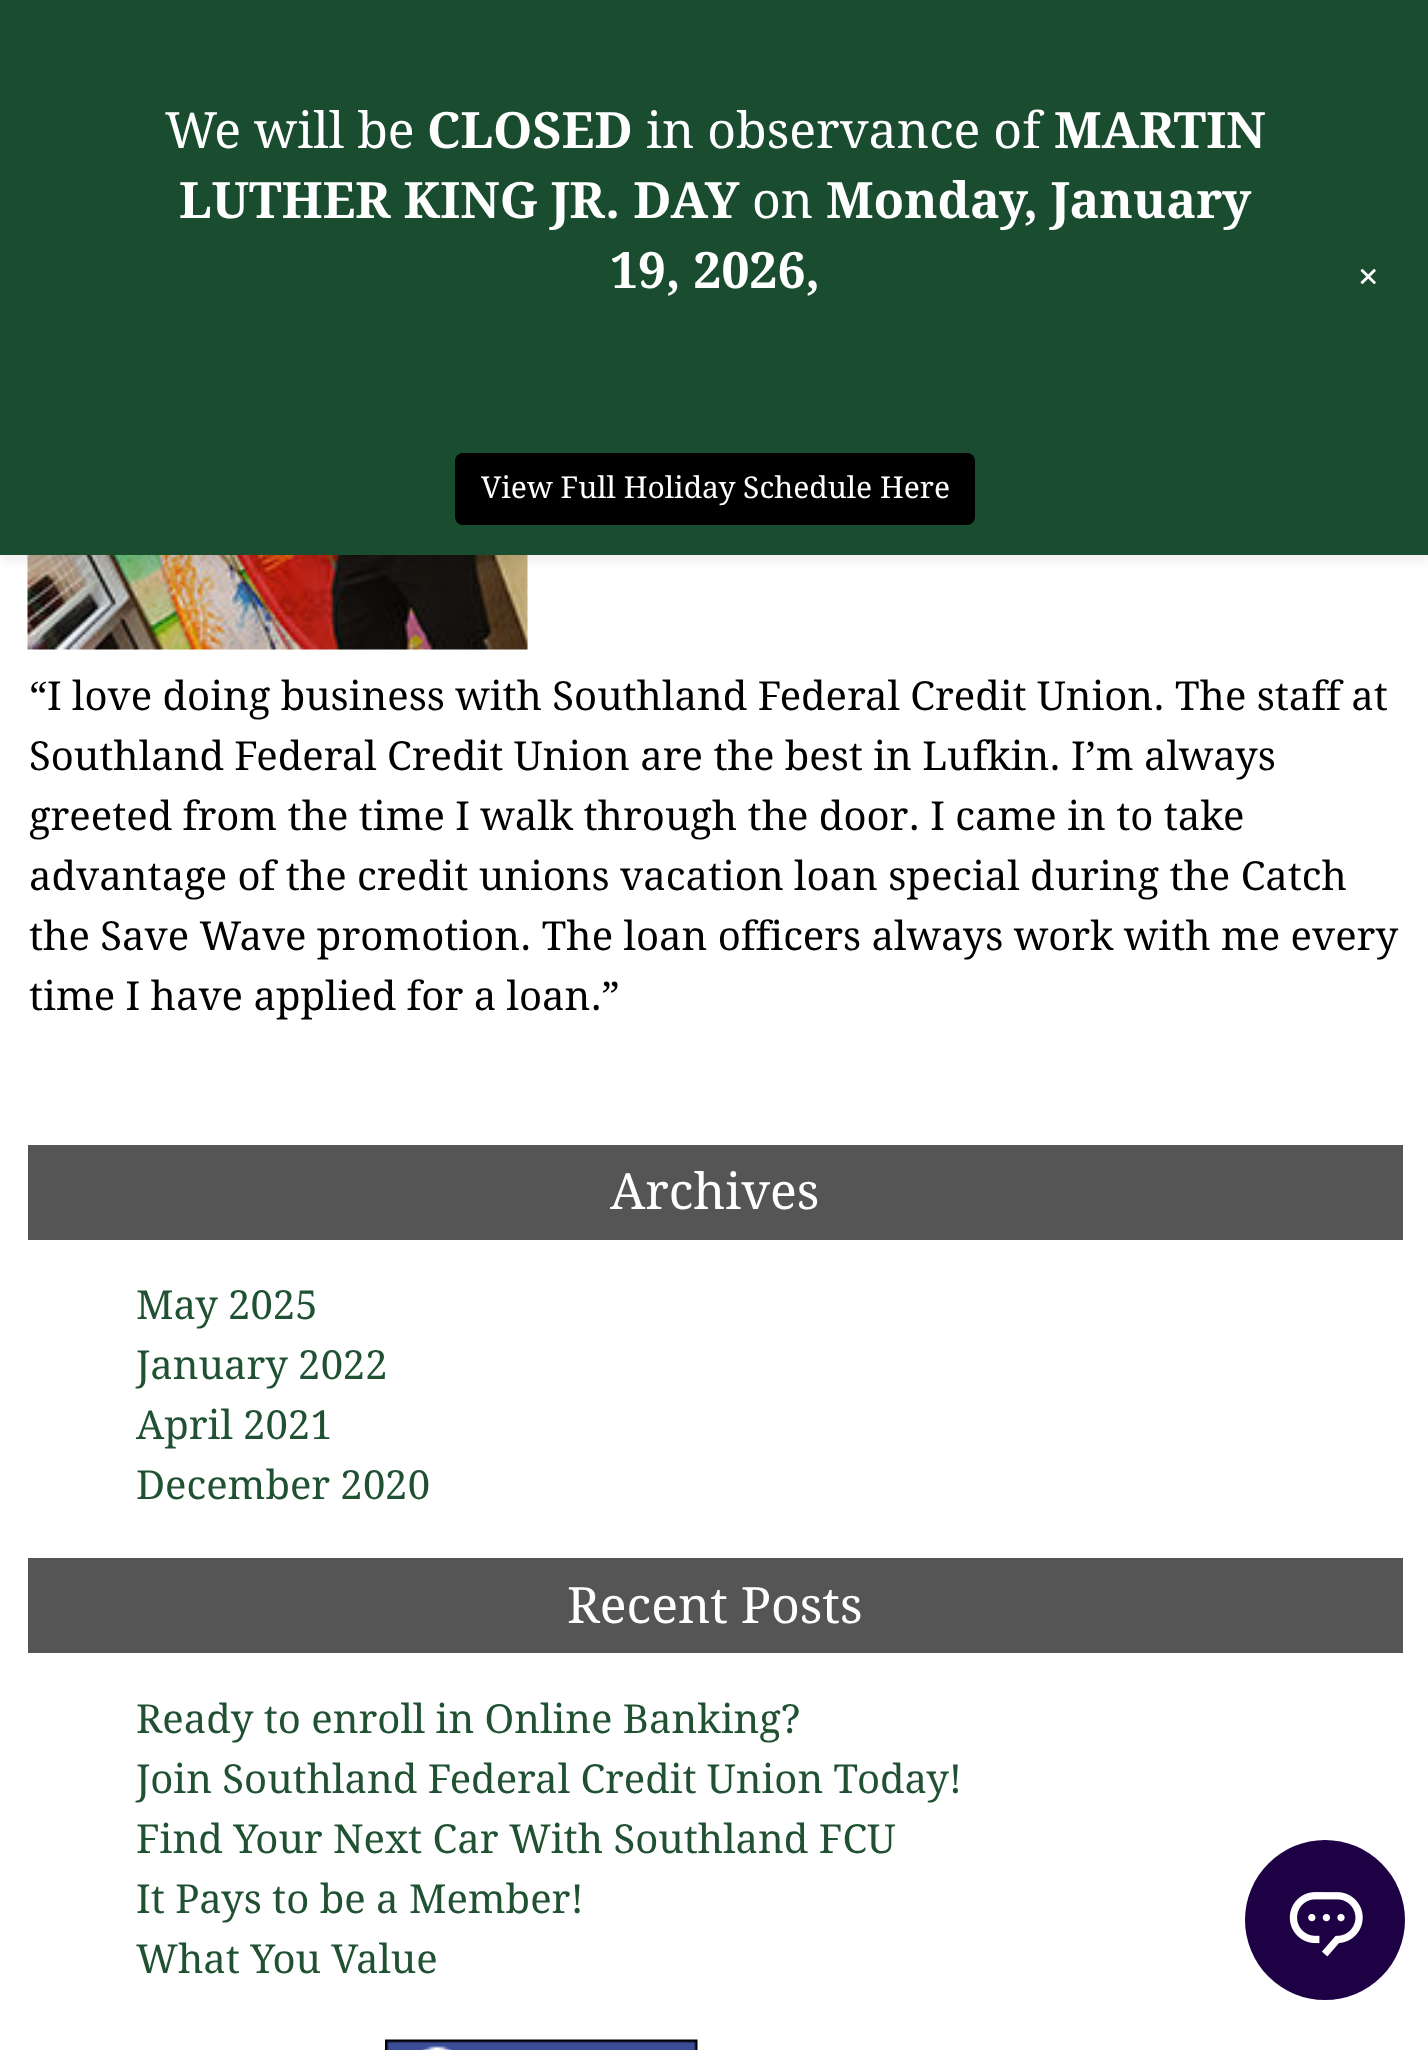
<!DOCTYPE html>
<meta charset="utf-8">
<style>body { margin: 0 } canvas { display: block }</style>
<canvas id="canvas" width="1428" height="2050"></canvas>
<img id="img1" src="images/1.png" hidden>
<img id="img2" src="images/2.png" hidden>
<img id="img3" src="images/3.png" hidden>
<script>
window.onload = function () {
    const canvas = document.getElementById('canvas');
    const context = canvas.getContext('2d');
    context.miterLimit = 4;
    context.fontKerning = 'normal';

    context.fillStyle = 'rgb(255, 255, 255)';
    context.fillRect(0, 0, 1428, 2050);
    context.drawImage(document.getElementById('img1'), 27, 555, 501, 95);
    context.fillStyle = 'rgba(0, 0, 0, 0.05)';
    context.filter = 'blur(5px)';
    context.beginPath();
    context.rect(0, 8, 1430, 555);
    context.fill();
    context.filter = 'none';
    context.fillStyle = 'rgb(26, 76, 48)';
    context.fillRect(0, 0, 1428, 555);
    context.fillStyle = 'rgb(0, 0, 0)';
    context.beginPath();
    context.roundRect(455, 453, 520, 72, 8);
    context.fill();
    context.fillStyle = 'rgb(85, 85, 85)';
    context.fillRect(28, 1145, 1375, 95);
    context.fillRect(28, 1558, 1375, 95);
    context.drawImage(document.getElementById('img2'), 385, 2039, 313, 11);
    context.fillStyle = 'rgb(30, 0, 68)';
    context.beginPath();
    context.arc(1325, 1920, 80, 0, 2 * Math.PI);
    context.fill();
    context.drawImage(document.getElementById('img3'), 1289, 1892, 74, 65);
    context.font = '50px Droid Serif';
    context.fillStyle = 'rgb(255, 255, 255)';
    context.fillText('We will be', 165, 148);
    context.font = 'bold 50px Droid Serif';
    context.fillText('CLOSED', 427, 148);
    context.font = '50px Droid Serif';
    context.fillText('in observance of', 646, 148);
    context.font = 'bold 50px Droid Serif';
    context.fillText('MARTIN', 1054, 148);
    context.fillText('LUTHER KING JR. DAY', 179, 218);
    context.font = '50px Droid Serif';
    context.fillText('on', 752, 218);
    context.font = 'bold 50px Droid Serif';
    context.fillText('Monday, January', 826, 218);
    context.fillText('19, 2026,', 610, 288);
    context.font = '30px Droid Serif';
    context.fillText('View Full Holiday Schedule Here', 481, 498);
    context.font = '45px Droid Serif';
    context.save();
    context.translate(1348, 279);
    context.rotate(45 * Math.PI / 180);
    context.fillText('+', 0, 0);
    context.restore();
    context.font = '40px Droid Serif';
    context.fillStyle = 'rgb(0, 0, 0)';
    context.fillText('“I love doing business with Southland Federal Credit Union. The staff at', 29, 710);
    context.fillText('Southland Federal Credit Union are the best in Lufkin. I’m always', 29, 770);
    context.fillText('greeted from the time I walk through the door. I came in to take', 29, 830);
    context.fillText('advantage of the credit unions vacation loan special during the Catch', 29, 890);
    context.fillText('the Save Wave promotion. The loan officers always work with me every', 29, 950);
    context.fillText('time I have applied for a loan.”', 29, 1010);
    context.font = '50px Droid Serif';
    context.fillStyle = 'rgb(255, 255, 255)';
    context.fillText('Archives', 610, 1209);
    context.font = '40px Droid Serif';
    context.fillStyle = 'rgb(32, 81, 50)';
    context.fillText('May 2025', 136, 1319);
    context.fillText('January 2022', 136, 1379);
    context.fillText('April 2021', 136, 1439);
    context.fillText('December 2020', 136, 1499);
    context.font = '50px Droid Serif';
    context.fillStyle = 'rgb(255, 255, 255)';
    context.fillText('Recent Posts', 567, 1623);
    context.font = '40px Droid Serif';
    context.fillStyle = 'rgb(32, 81, 50)';
    context.fillText('Ready to enroll in Online Banking?', 136, 1733);
    context.fillText('Join Southland Federal Credit Union Today!', 136, 1793);
    context.fillText('Find Your Next Car With Southland FCU', 136, 1853);
    context.fillText('It Pays to be a Member!', 136, 1913);
    context.fillText('What You Value', 136, 1973);
};
</script>
